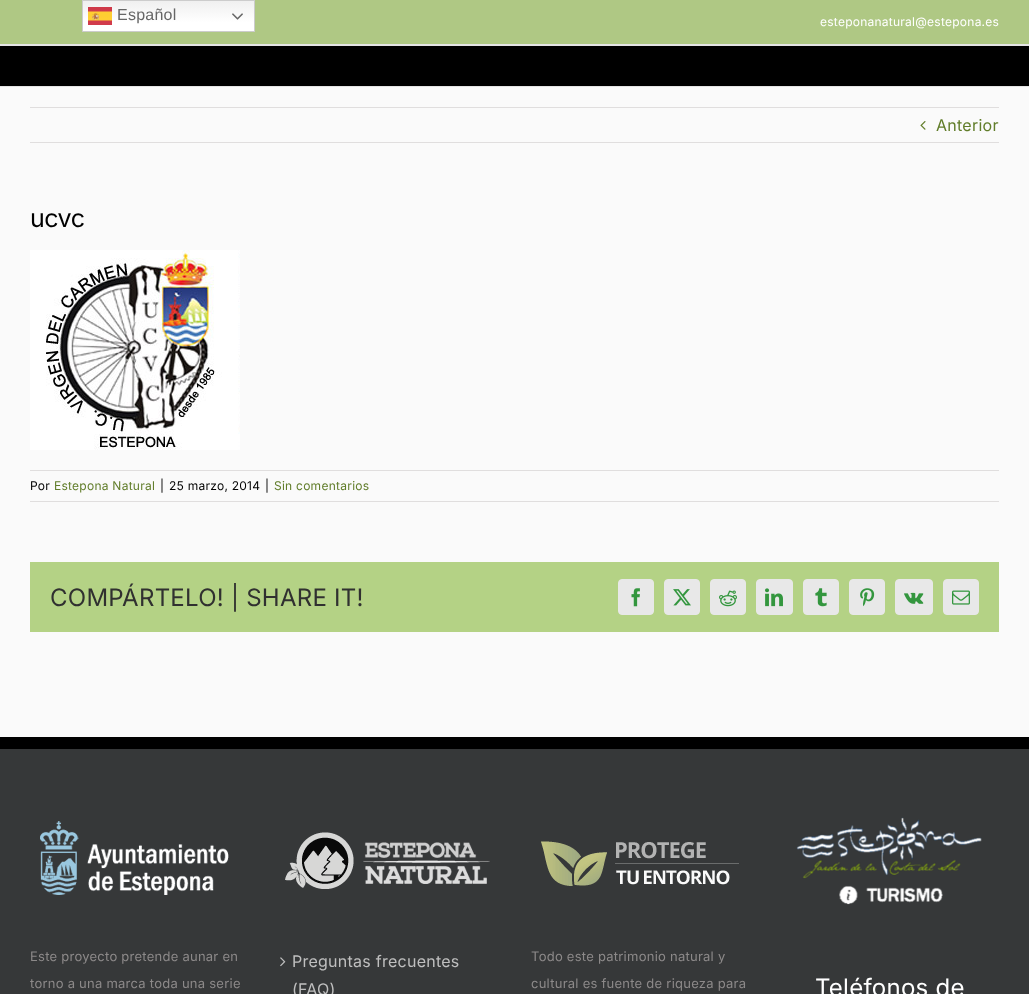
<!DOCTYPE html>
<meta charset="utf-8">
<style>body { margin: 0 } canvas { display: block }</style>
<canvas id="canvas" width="1029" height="994"></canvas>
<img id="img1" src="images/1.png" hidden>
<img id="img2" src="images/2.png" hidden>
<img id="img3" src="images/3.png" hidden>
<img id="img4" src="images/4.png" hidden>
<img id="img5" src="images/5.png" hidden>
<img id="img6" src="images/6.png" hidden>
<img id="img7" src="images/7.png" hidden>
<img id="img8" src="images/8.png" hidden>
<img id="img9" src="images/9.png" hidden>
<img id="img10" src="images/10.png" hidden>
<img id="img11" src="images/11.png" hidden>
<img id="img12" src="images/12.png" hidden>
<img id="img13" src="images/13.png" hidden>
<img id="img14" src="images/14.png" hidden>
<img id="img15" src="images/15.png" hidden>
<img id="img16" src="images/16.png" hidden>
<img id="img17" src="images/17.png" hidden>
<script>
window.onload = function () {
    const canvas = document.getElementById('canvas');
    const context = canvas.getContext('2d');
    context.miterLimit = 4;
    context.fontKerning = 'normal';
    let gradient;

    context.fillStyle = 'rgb(250, 250, 250)';
    context.fillRect(0, 0, 1029, 994);
    context.fillStyle = 'rgb(175, 200, 132)';
    context.fillRect(0, 0, 1029, 44);
    gradient = context.createLinearGradient(169, 0, 169, 32);
    gradient.addColorStop(0, 'rgb(239, 239, 239)');
    gradient.addColorStop(0.7, 'rgb(255, 255, 255)');
    context.fillStyle = gradient;
    context.fillRect(83, 1, 171, 30);
    context.strokeStyle = 'rgb(204, 204, 204)';
    context.strokeRect(82.5, 0.5, 172, 31);
    context.drawImage(document.getElementById('img1'), 88, 7, 24, 18);
    context.drawImage(document.getElementById('img2'), 232, 13, 11, 7);
    context.fillStyle = 'rgb(229, 229, 229)';
    context.fillRect(0, 44, 1029, 2);
    context.fillStyle = 'rgb(0, 0, 0)';
    context.fillRect(0, 46, 1029, 40);
    context.fillStyle = 'rgb(229, 229, 229)';
    context.fillRect(0, 86, 1029, 1);
    context.fillStyle = 'rgb(224, 222, 222)';
    context.fillRect(30, 107, 969, 1);
    context.fillRect(30, 142, 969, 1);
    context.drawImage(document.getElementById('img3'), 920, 121, 6, 9);
    context.drawImage(document.getElementById('img4'), 30, 250, 210, 200);
    context.fillRect(30, 470, 969, 1);
    context.fillRect(30, 501, 969, 1);
    context.fillStyle = 'rgb(180, 210, 133)';
    context.fillRect(30, 562, 969, 70);
    context.fillStyle = 'rgb(232, 232, 232)';
    context.beginPath();
    context.roundRect(618.5, 579.5, 35, 35, 3.5);
    context.fill();
    context.strokeStyle = 'rgb(232, 232, 232)';
    context.stroke();
    context.drawImage(document.getElementById('img5'), 631, 588, 9, 19);
    context.beginPath();
    context.roundRect(664.5, 579.5, 35, 35, 3.5);
    context.fill();
    context.stroke();
    context.drawImage(document.getElementById('img6'), 673, 589, 18, 17);
    context.beginPath();
    context.roundRect(710.5, 579.5, 35, 35, 3.5);
    context.fill();
    context.stroke();
    context.drawImage(document.getElementById('img7'), 719, 590, 18, 17);
    context.beginPath();
    context.roundRect(756.5, 579.5, 36, 35, 3.5);
    context.fill();
    context.stroke();
    context.drawImage(document.getElementById('img8'), 765, 588, 18, 19);
    context.beginPath();
    context.roundRect(803.5, 579.5, 35, 35, 3.5);
    context.fill();
    context.stroke();
    context.drawImage(document.getElementById('img9'), 815, 588, 12, 19);
    context.beginPath();
    context.roundRect(849.5, 579.5, 35, 35, 3.5);
    context.fill();
    context.stroke();
    context.drawImage(document.getElementById('img10'), 860, 588, 15, 19);
    context.beginPath();
    context.roundRect(895.5, 579.5, 37, 35, 3.5);
    context.fill();
    context.stroke();
    context.drawImage(document.getElementById('img11'), 904, 592, 20, 12);
    context.beginPath();
    context.roundRect(943.5, 579.5, 35, 35, 3.5);
    context.fill();
    context.stroke();
    context.drawImage(document.getElementById('img12'), 952, 590, 18, 15);
    context.fillStyle = 'rgb(54, 56, 57)';
    context.fillRect(0, 749, 1029, 245);
    context.fillStyle = 'rgb(0, 0, 0)';
    context.fillRect(0, 737, 1029, 12);
    context.drawImage(document.getElementById('img13'), 40, 821, 189, 74);
    context.drawImage(document.getElementById('img14'), 285, 832, 205, 57);
    context.drawImage(document.getElementById('img15'), 280, 957, 6, 10);
    context.drawImage(document.getElementById('img16'), 541, 841, 198, 45);
    context.drawImage(document.getElementById('img17'), 796, 817, 186, 88);
    context.letterSpacing = '0.25px';
    context.font = '16px Liberation Sans';
    context.fillStyle = 'rgb(102, 102, 102)';
    context.fillText('Español', 117, 20);
    context.font = '12px Inter';
    context.fillStyle = 'rgb(255, 255, 255)';
    context.fillText('esteponanatural@estepona.es', 820, 26);
    context.font = '16px Inter';
    context.fillStyle = 'rgb(97, 125, 42)';
    context.fillText('Anterior', 936, 131);
    context.letterSpacing = '-0.5px';
    context.font = '25px Inter';
    context.fillStyle = 'rgb(0, 0, 0)';
    context.fillText('ucvc', 30, 227);
    context.letterSpacing = '0.25px';
    context.font = '12px Inter';
    context.fillText('Por', 30, 490);
    context.fillStyle = 'rgb(97, 125, 42)';
    context.fillText('Estepona Natural', 54, 490);
    context.fillStyle = 'rgb(0, 0, 0)';
    context.fillText('|', 160, 490);
    context.fillText('25 marzo, 2014', 169, 490);
    context.fillText('|', 265, 490);
    context.fillStyle = 'rgb(97, 125, 42)';
    context.fillText('Sin comentarios', 274, 490);
    context.font = '24px Inter';
    context.fillStyle = 'rgb(48, 48, 48)';
    context.fillText('COMPÁRTELO! | SHARE IT!', 50, 606);
    context.font = '13px Inter';
    context.fillStyle = 'rgb(140, 137, 137)';
    context.fillText('Este proyecto pretende aunar en', 30, 961);
    context.fillText('torno a una marca toda una serie', 30, 988);
    context.font = '16px Inter';
    context.fillStyle = 'rgb(191, 191, 191)';
    context.fillText('Preguntas frecuentes', 292, 967);
    context.fillText('(FAQ)', 292, 995);
    context.font = '13px Inter';
    context.fillStyle = 'rgb(140, 137, 137)';
    context.fillText('Todo este patrimonio natural y', 531, 961);
    context.fillText('cultural es fuente de riqueza para', 531, 988);
    context.font = '24px Inter';
    context.fillStyle = 'rgb(255, 255, 255)';
    context.fillText('Teléfonos de', 815, 996);
};
</script>
